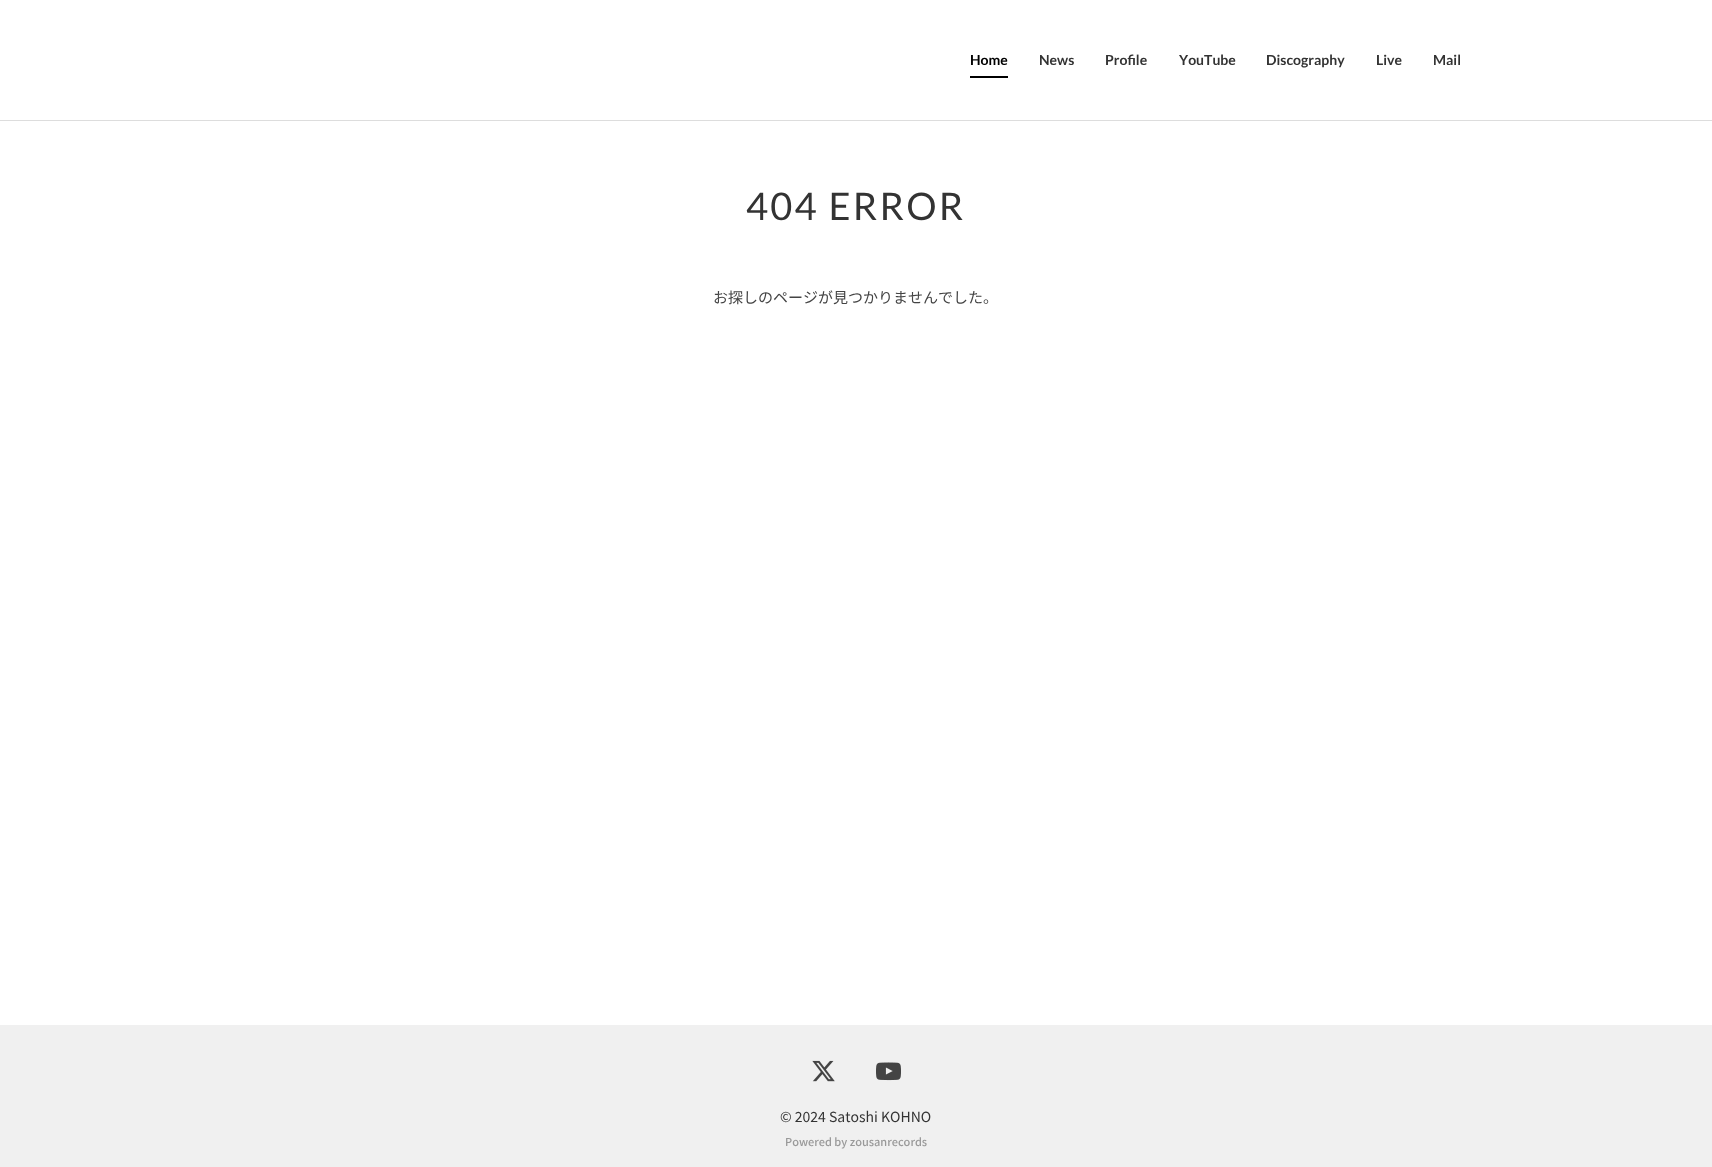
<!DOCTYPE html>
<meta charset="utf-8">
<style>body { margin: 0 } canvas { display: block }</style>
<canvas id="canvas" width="1712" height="1167"></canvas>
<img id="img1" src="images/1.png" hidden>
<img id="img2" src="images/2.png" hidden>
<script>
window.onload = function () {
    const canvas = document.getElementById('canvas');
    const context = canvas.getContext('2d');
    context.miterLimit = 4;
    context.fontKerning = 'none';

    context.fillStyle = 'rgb(255, 255, 255)';
    context.fillRect(0, 0, 1712, 1167);
    context.fillStyle = 'rgb(221, 221, 221)';
    context.fillRect(0, 120, 1712, 1);
    context.fillStyle = 'rgb(0, 0, 0)';
    context.fillRect(970, 76, 38, 2);
    context.fillStyle = 'rgb(240, 240, 240)';
    context.fillRect(0, 1025, 1712, 142);
    context.drawImage(document.getElementById('img1'), 812, 1060, 23, 22);
    context.drawImage(document.getElementById('img2'), 876, 1062, 25, 19);
    context.font = 'bold 14px Lato';
    context.fillStyle = 'rgb(0, 0, 0)';
    context.fillText('Home', 970, 65);
    context.fillStyle = 'rgb(51, 51, 51)';
    context.fillText('News', 1039, 65);
    context.fillText('Profile', 1105, 65);
    context.fillText('YouTube', 1179, 65);
    context.fillText('Discography', 1266, 65);
    context.fillText('Live', 1376, 65);
    context.fillText('Mail', 1433, 65);
    context.letterSpacing = '2.25px';
    context.font = '38px Lato';
    context.fillText('404 ERROR', 746, 220);
    context.letterSpacing = '0px';
    context.font = '15px Noto Sans JP';
    context.fillStyle = 'rgb(68, 68, 68)';
    context.fillText('お探しのページが見つかりませんでした。', 713, 303);
    context.font = '14px Noto Sans JP';
    context.fillStyle = 'rgb(51, 51, 51)';
    context.fillText('© 2024 Satoshi KOHNO', 780, 1122);
    context.font = '500 11px Noto Sans JP';
    context.fillStyle = 'rgb(153, 153, 153)';
    context.fillText('Powered by zousanrecords', 785, 1146);
};
</script>
